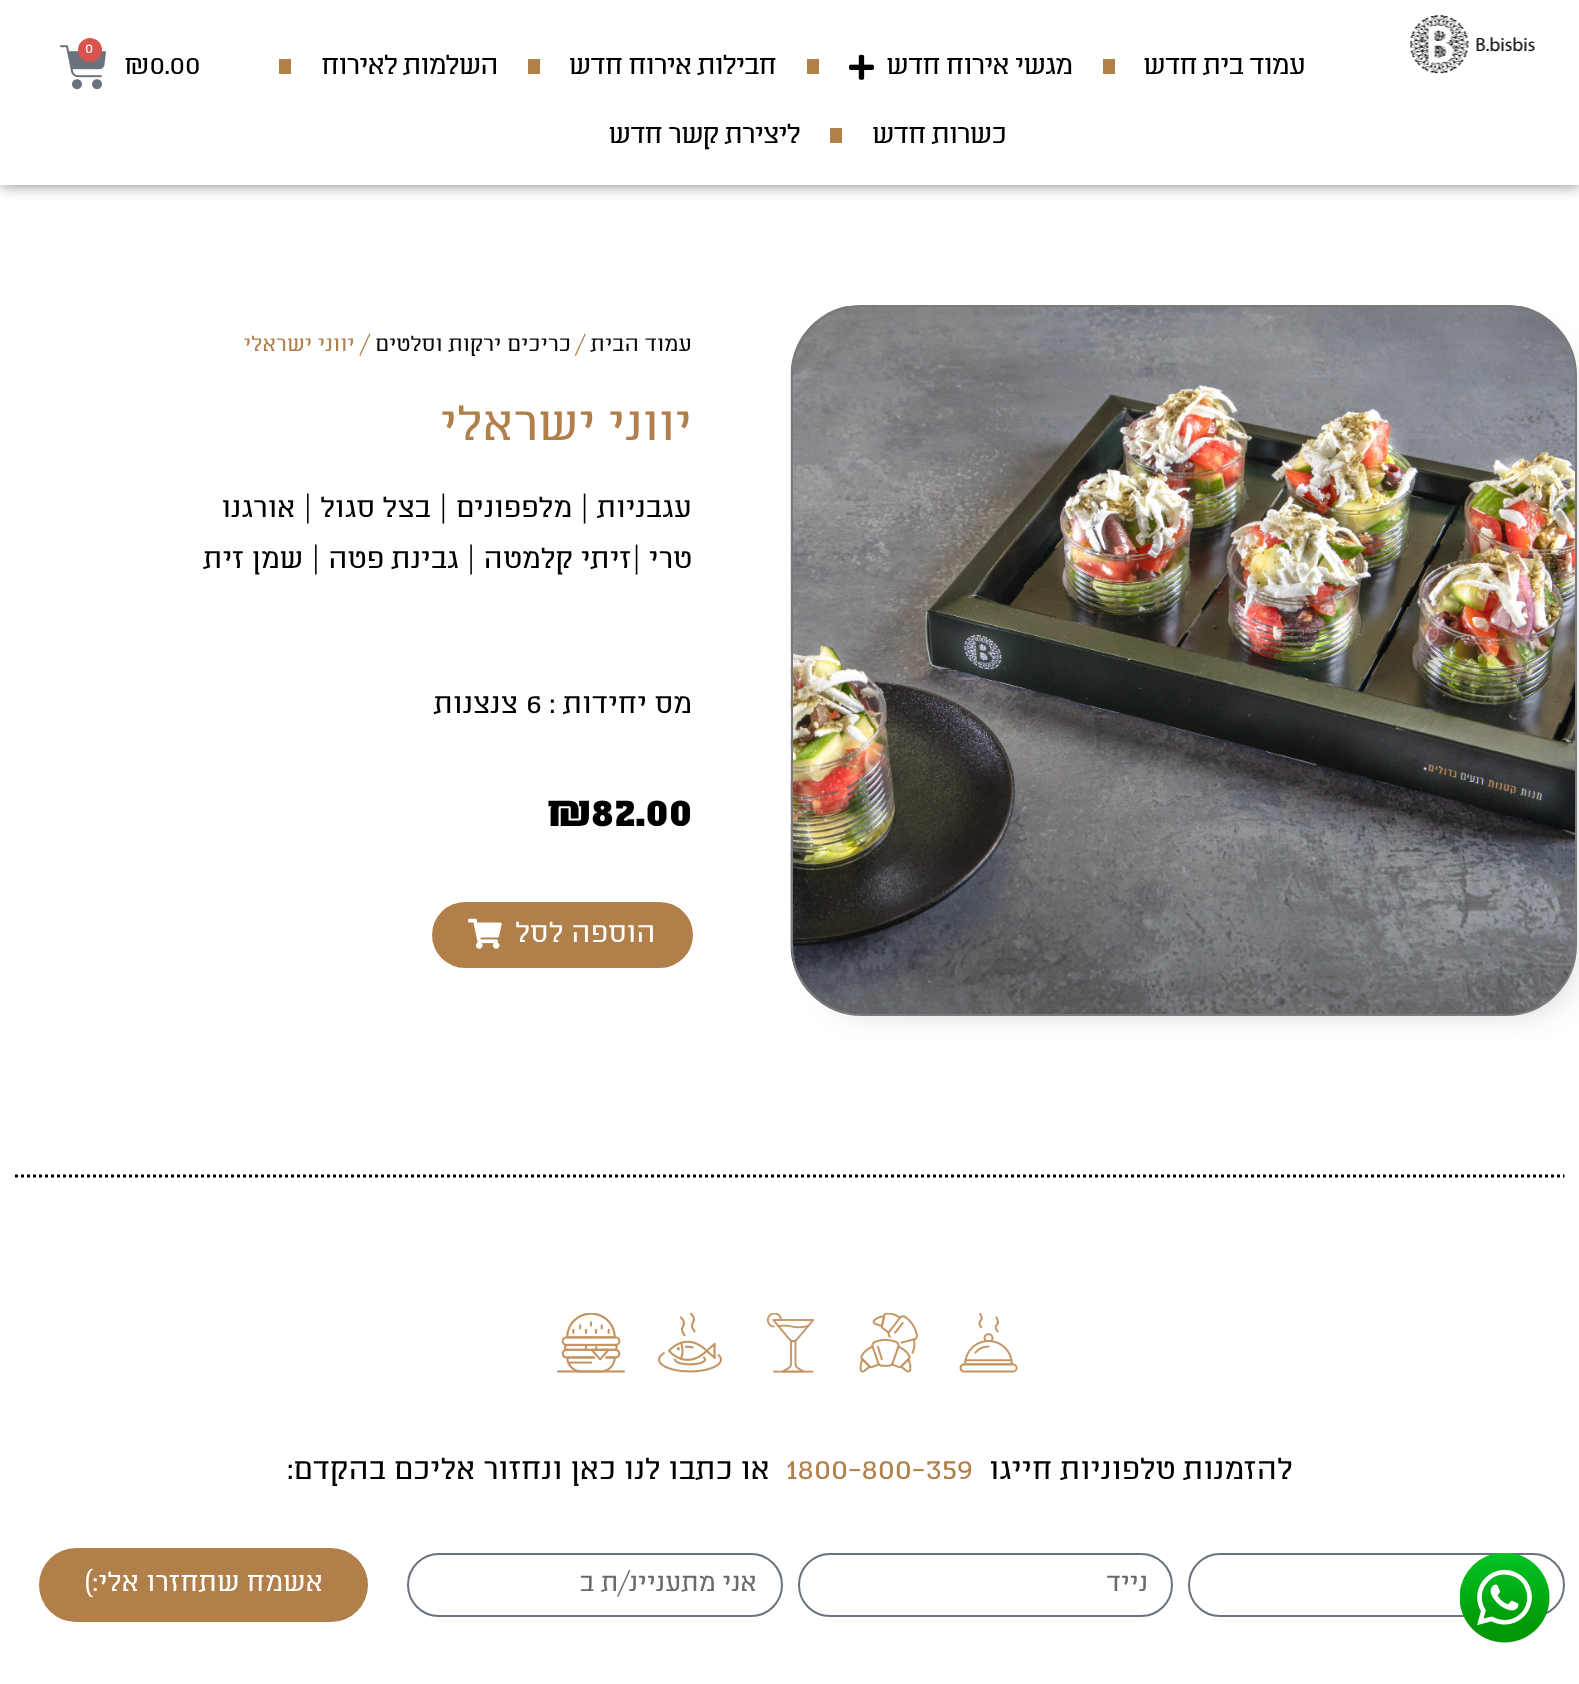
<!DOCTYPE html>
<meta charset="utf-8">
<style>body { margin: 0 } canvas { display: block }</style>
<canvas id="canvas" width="1579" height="1684"></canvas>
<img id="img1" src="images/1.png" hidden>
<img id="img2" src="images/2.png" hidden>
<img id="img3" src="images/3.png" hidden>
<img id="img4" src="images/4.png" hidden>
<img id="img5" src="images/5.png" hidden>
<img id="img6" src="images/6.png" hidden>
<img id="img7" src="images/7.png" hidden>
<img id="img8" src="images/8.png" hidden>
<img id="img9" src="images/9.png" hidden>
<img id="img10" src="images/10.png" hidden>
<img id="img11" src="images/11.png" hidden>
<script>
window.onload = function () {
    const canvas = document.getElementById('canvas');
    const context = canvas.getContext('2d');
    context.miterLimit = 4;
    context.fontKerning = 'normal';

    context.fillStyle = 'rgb(255, 255, 255)';
    context.fillRect(0, 0, 1579, 1684);
    context.fillStyle = 'rgba(0, 0, 0, 0.5)';
    context.filter = 'blur(7.5px)';
    context.beginPath();
    context.rect(0, 0, 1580, 185);
    context.fill();
    context.filter = 'none';
    context.fillStyle = 'rgb(255, 255, 255)';
    context.fillRect(0, 0, 1579, 185);
    context.drawImage(document.getElementById('img1'), 1410, 15, 125, 59);
    context.fillStyle = 'rgb(177, 127, 73)';
    context.fillRect(1103, 59, 12, 15);
    context.drawImage(document.getElementById('img2'), 849, 54, 25, 26);
    context.fillRect(807, 59, 12, 15);
    context.fillRect(528, 59, 12, 15);
    context.fillRect(279, 59, 12, 15);
    context.fillRect(830, 128, 12, 15);
    context.drawImage(document.getElementById('img3'), 60, 45, 46, 45);
    context.fillStyle = 'rgb(217, 83, 79)';
    context.beginPath();
    context.arc(90, 50, 12, 0, 2 * Math.PI);
    context.fill();
    context.fillStyle = 'rgba(0, 0, 0, 0.15)';
    context.filter = 'blur(15px)';
    context.beginPath();
    context.roundRect(822, 336, 753, 678, 54);
    context.fill();
    context.filter = 'none';
    context.drawImage(document.getElementById('img4'), 790, 306, 787, 708);
    context.beginPath();
    context.roundRect(792, 306, 784, 709, 70);
    context.strokeStyle = 'rgb(122, 122, 122)';
    context.lineWidth = 2;
    context.stroke();
    context.fillStyle = 'rgb(177, 127, 73)';
    context.beginPath();
    context.roundRect(432, 902, 261, 66, 33);
    context.fill();
    context.drawImage(document.getElementById('img5'), 468, 918, 34, 31);
    context.beginPath();
    context.moveTo(15, 1176);
    context.lineTo(1564.5, 1176);
    context.strokeStyle = 'rgb(0, 0, 0)';
    context.lineWidth = 3;
    context.setLineDash([3, 3]);
    context.stroke();
    context.drawImage(document.getElementById('img6'), 959, 1313, 59, 60);
    context.drawImage(document.getElementById('img7'), 859, 1313, 59, 60);
    context.drawImage(document.getElementById('img8'), 766, 1313, 49, 60);
    context.drawImage(document.getElementById('img9'), 658, 1313, 64, 60);
    context.drawImage(document.getElementById('img10'), 557, 1313, 68, 60);
    context.beginPath();
    context.roundRect(1189, 1554, 375, 62, 31);
    context.strokeStyle = 'rgb(105, 114, 125)';
    context.lineWidth = 2;
    context.setLineDash([]);
    context.stroke();
    context.drawImage(document.getElementById('img11'), 1460, 1553, 90, 90);
    context.beginPath();
    context.roundRect(799, 1554, 373, 62, 31);
    context.stroke();
    context.beginPath();
    context.roundRect(408, 1554, 374, 62, 31);
    context.stroke();
    context.beginPath();
    context.roundRect(39, 1548, 329, 74, 37);
    context.fill();
    context.letterSpacing = '-1px';
    context.direction = 'rtl';
    context.font = '28.5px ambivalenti';
    context.fillStyle = 'rgb(0, 0, 0)';
    context.fillText('עמוד בית חדש', 1305, 74);
    context.fillText('מגשי אירוח חדש', 1072, 74);
    context.fillText('חבילות אירוח חדש', 776, 74);
    context.fillText('השלמות לאירוח', 498, 74);
    context.fillText('כשרות חדש', 1006, 143);
    context.fillText('ליצירת קשר חדש', 800, 143);
    context.letterSpacing = '0px';
    context.direction = 'ltr';
    context.font = '15px ambivalenti';
    context.fillStyle = 'rgb(255, 255, 255)';
    context.fillText('0', 85, 53);
    context.font = '28.5px ambivalenti';
    context.fillStyle = 'rgb(0, 0, 0)';
    context.fillText('₪0.00', 124, 74);
    context.direction = 'rtl';
    context.font = '22.5px ambivalenti';
    context.fillStyle = 'rgb(8, 8, 8)';
    context.fillText('עמוד הבית', 692, 351);
    context.direction = 'ltr';
    context.fillStyle = 'rgb(177, 127, 73)';
    context.fillText('/', 576, 351);
    context.direction = 'rtl';
    context.fillStyle = 'rgb(8, 8, 8)';
    context.fillText('כריכים ירקות וסלטים', 571, 351);
    context.fillStyle = 'rgb(177, 127, 73)';
    context.fillText('/ יווני ישראלי', 369, 351);
    context.font = '51px ambivalenti';
    context.fillText('יווני ישראלי', 692, 440);
    context.font = '30px ambivalenti';
    context.fillStyle = 'rgb(0, 0, 0)';
    context.fillText('עגבניות | מלפפונים | בצל סגול | אורגנו', 692, 517);
    context.fillText('טרי |זיתי קלמטה | גבינת פטה | שמן זית', 692, 568);
    context.fillText('מס יחידות :', 692, 713);
    context.direction = 'ltr';
    context.fillText('6', 526, 713);
    context.direction = 'rtl';
    context.fillText('צנצנות', 518, 713);
    context.direction = 'ltr';
    context.font = '900 45px ambivalenti';
    context.fillText('₪82.00', 547, 826);
    context.direction = 'rtl';
    context.font = '30px ambivalenti';
    context.fillStyle = 'rgb(255, 255, 255)';
    context.fillText('הוספה לסל', 656, 942);
    context.font = '31.5px ambivalenti';
    context.fillStyle = 'rgb(0, 0, 0)';
    context.fillText('להזמנות טלפוניות חייגו', 1293, 1479);
    context.direction = 'ltr';
    context.fillStyle = 'rgb(177, 127, 73)';
    context.fillText('1800-800-359', 786, 1479);
    context.direction = 'rtl';
    context.fillStyle = 'rgb(0, 0, 0)';
    context.fillText('או כתבו לנו כאן ונחזור אליכם בהקדם', 770, 1479);
    context.direction = 'ltr';
    context.fillText(':', 287, 1479);
    context.direction = 'rtl';
    context.font = '27px ambivalenti';
    context.fillStyle = 'rgb(106, 106, 106)';
    context.fillText('נייד', 1148, 1591);
    context.fillText('אני מתעניינ/ת ב', 757, 1591);
    context.font = '28.5px ambivalenti';
    context.fillStyle = 'rgb(255, 255, 255)';
    context.fillText('אשמח שתחזרו אלי:)', 323, 1591);
};
</script>
